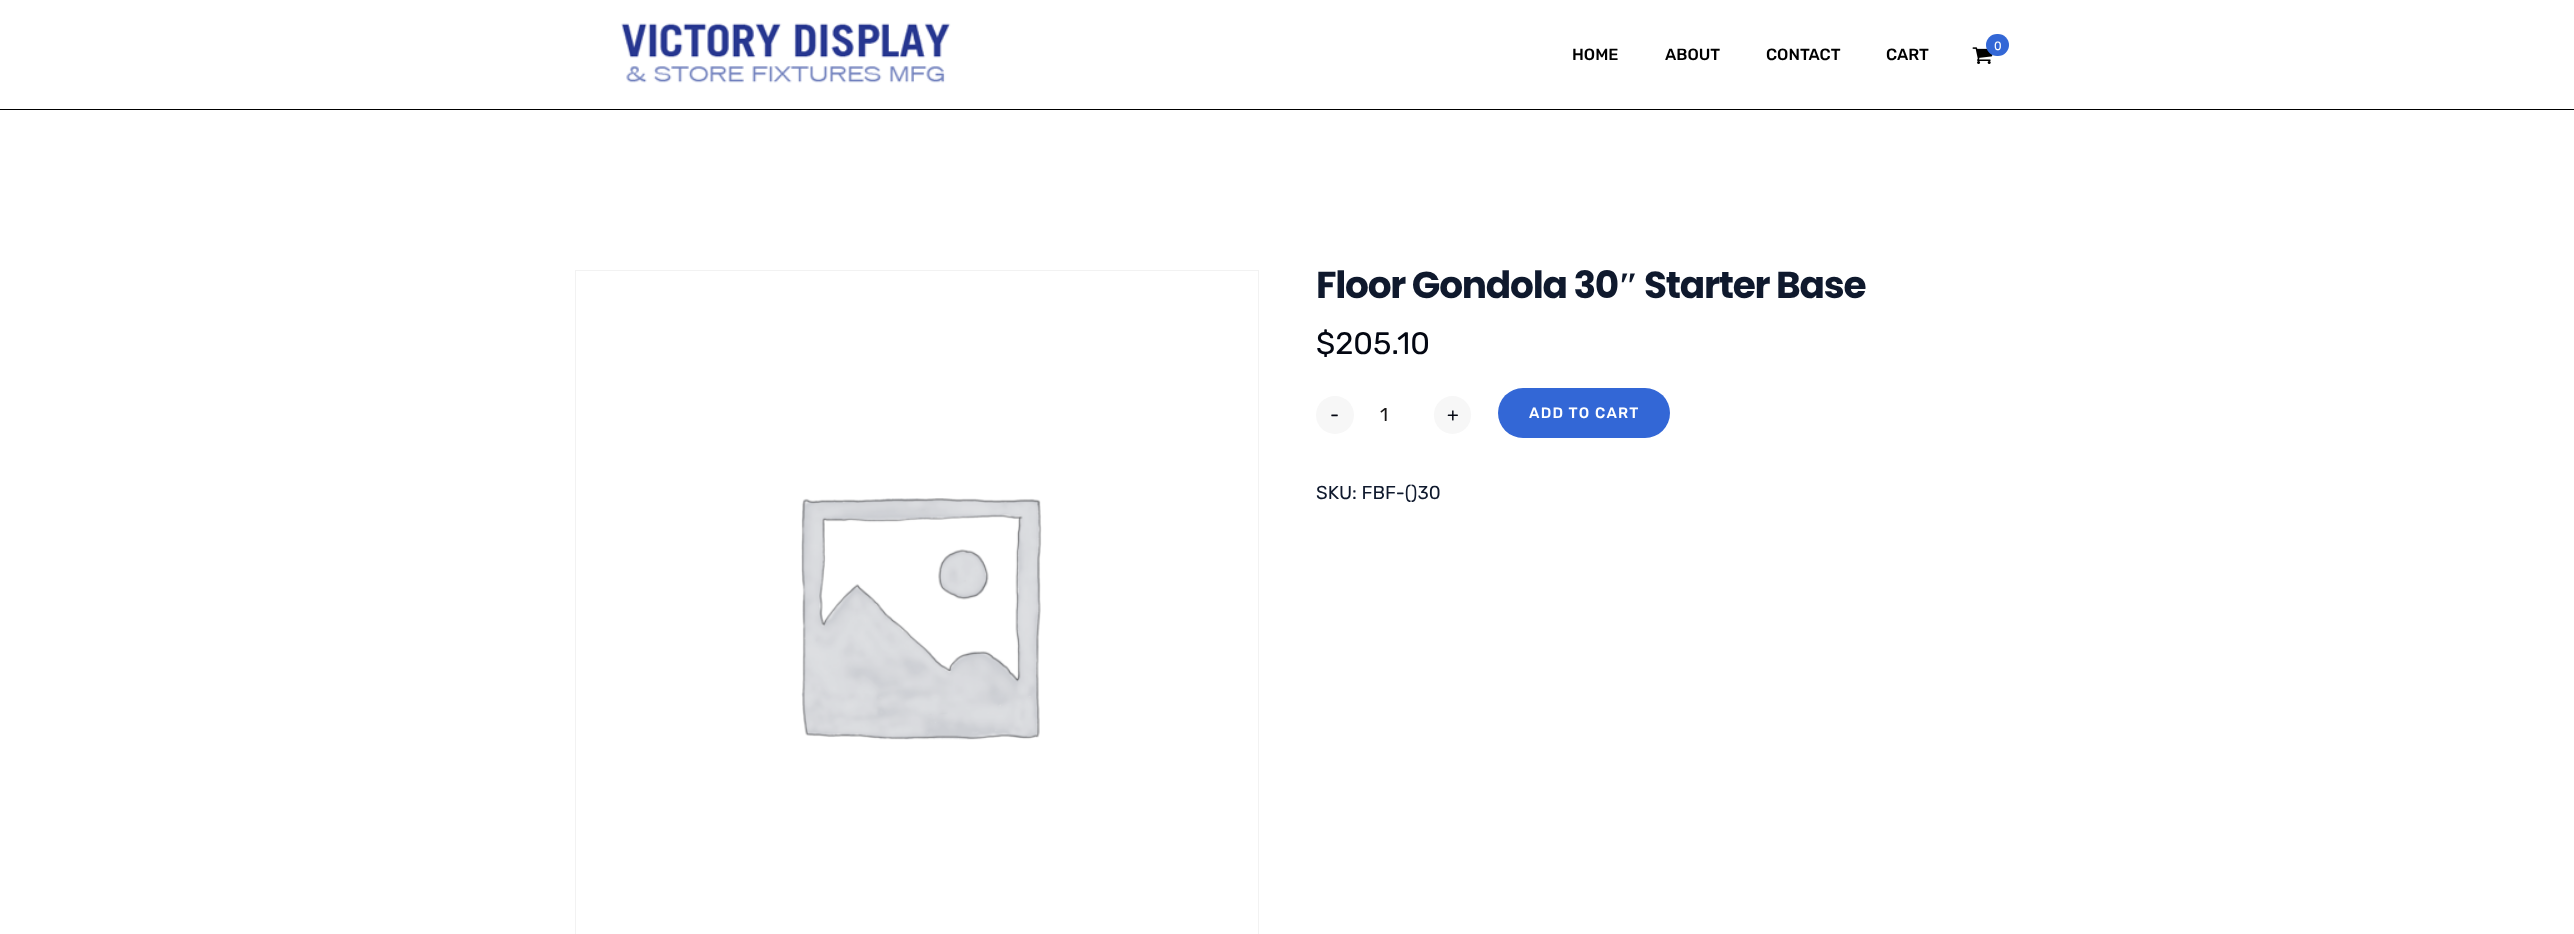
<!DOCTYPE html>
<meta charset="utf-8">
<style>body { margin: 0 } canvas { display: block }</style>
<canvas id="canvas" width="2574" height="934"></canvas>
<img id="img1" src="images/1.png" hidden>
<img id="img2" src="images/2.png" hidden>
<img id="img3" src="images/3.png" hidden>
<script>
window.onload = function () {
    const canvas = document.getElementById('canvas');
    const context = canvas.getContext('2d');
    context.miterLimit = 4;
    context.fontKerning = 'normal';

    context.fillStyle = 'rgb(255, 255, 255)';
    context.fillRect(0, 0, 2574, 934);
    context.fillStyle = 'rgb(0, 0, 0)';
    context.fillRect(0, 109, 2574, 1);
    context.drawImage(document.getElementById('img1'), 621, 23, 330, 60);
    context.drawImage(document.getElementById('img2'), 1972, 47, 21, 17);
    context.fillStyle = 'rgb(51, 103, 214)';
    context.beginPath();
    context.roundRect(1986, 34, 23, 22, 11);
    context.fill();
    context.strokeStyle = 'rgb(242, 242, 242)';
    context.strokeRect(575.5, 270.5, 683, 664);
    context.drawImage(document.getElementById('img3'), 801, 498, 241, 242);
    context.fillStyle = 'rgb(247, 247, 247)';
    context.beginPath();
    context.arc(1335, 415, 19, 0, 2 * Math.PI);
    context.fill();
    context.beginPath();
    context.roundRect(1434, 396, 37, 38, 18.5);
    context.fill();
    context.fillStyle = 'rgb(51, 103, 214)';
    context.beginPath();
    context.roundRect(1498, 388, 172, 50, 25);
    context.fill();
    context.font = '12px Rubik';
    context.fillStyle = 'rgb(255, 255, 255)';
    context.fillText('0', 1994, 50);
    context.font = '500 16.25px Rubik';
    context.fillStyle = 'rgb(0, 0, 0)';
    context.fillText('HOME', 1572, 60);
    context.fillText('ABOUT', 1665, 60);
    context.fillText('CONTACT', 1766, 60);
    context.fillText('CART', 1886, 60);
    context.letterSpacing = '-1.25px';
    context.font = 'bold 37.5px Poppins';
    context.fillStyle = 'rgb(15, 25, 45)';
    context.fillText('Floor Gondola 30', 1316, 298);
    context.font = 'bold 37.5px Liberation Serif';
    context.fillText('″', 1618, 298);
    context.font = 'bold 37.5px Poppins';
    context.fillText('Starter Base', 1644, 298);
    context.letterSpacing = '0px';
    context.font = '31px Rubik';
    context.fillStyle = 'rgb(3, 7, 18)';
    context.fillText('$205.10', 1316, 354);
    context.font = '18.75px Rubik';
    context.fillText('-', 1330, 421);
    context.fillStyle = 'rgb(25, 23, 23)';
    context.fillText('1', 1380, 421);
    context.fillStyle = 'rgb(3, 7, 18)';
    context.fillText('+', 1447, 421);
    context.letterSpacing = '1.25px';
    context.font = '500 15px Rubik';
    context.fillStyle = 'rgb(255, 255, 255)';
    context.fillText('ADD TO CART', 1529, 418);
    context.letterSpacing = '0px';
    context.font = '18.75px Rubik';
    context.fillStyle = 'rgb(15, 25, 45)';
    context.fillText('SKU: FBF-()30', 1316, 499);
};
</script>
